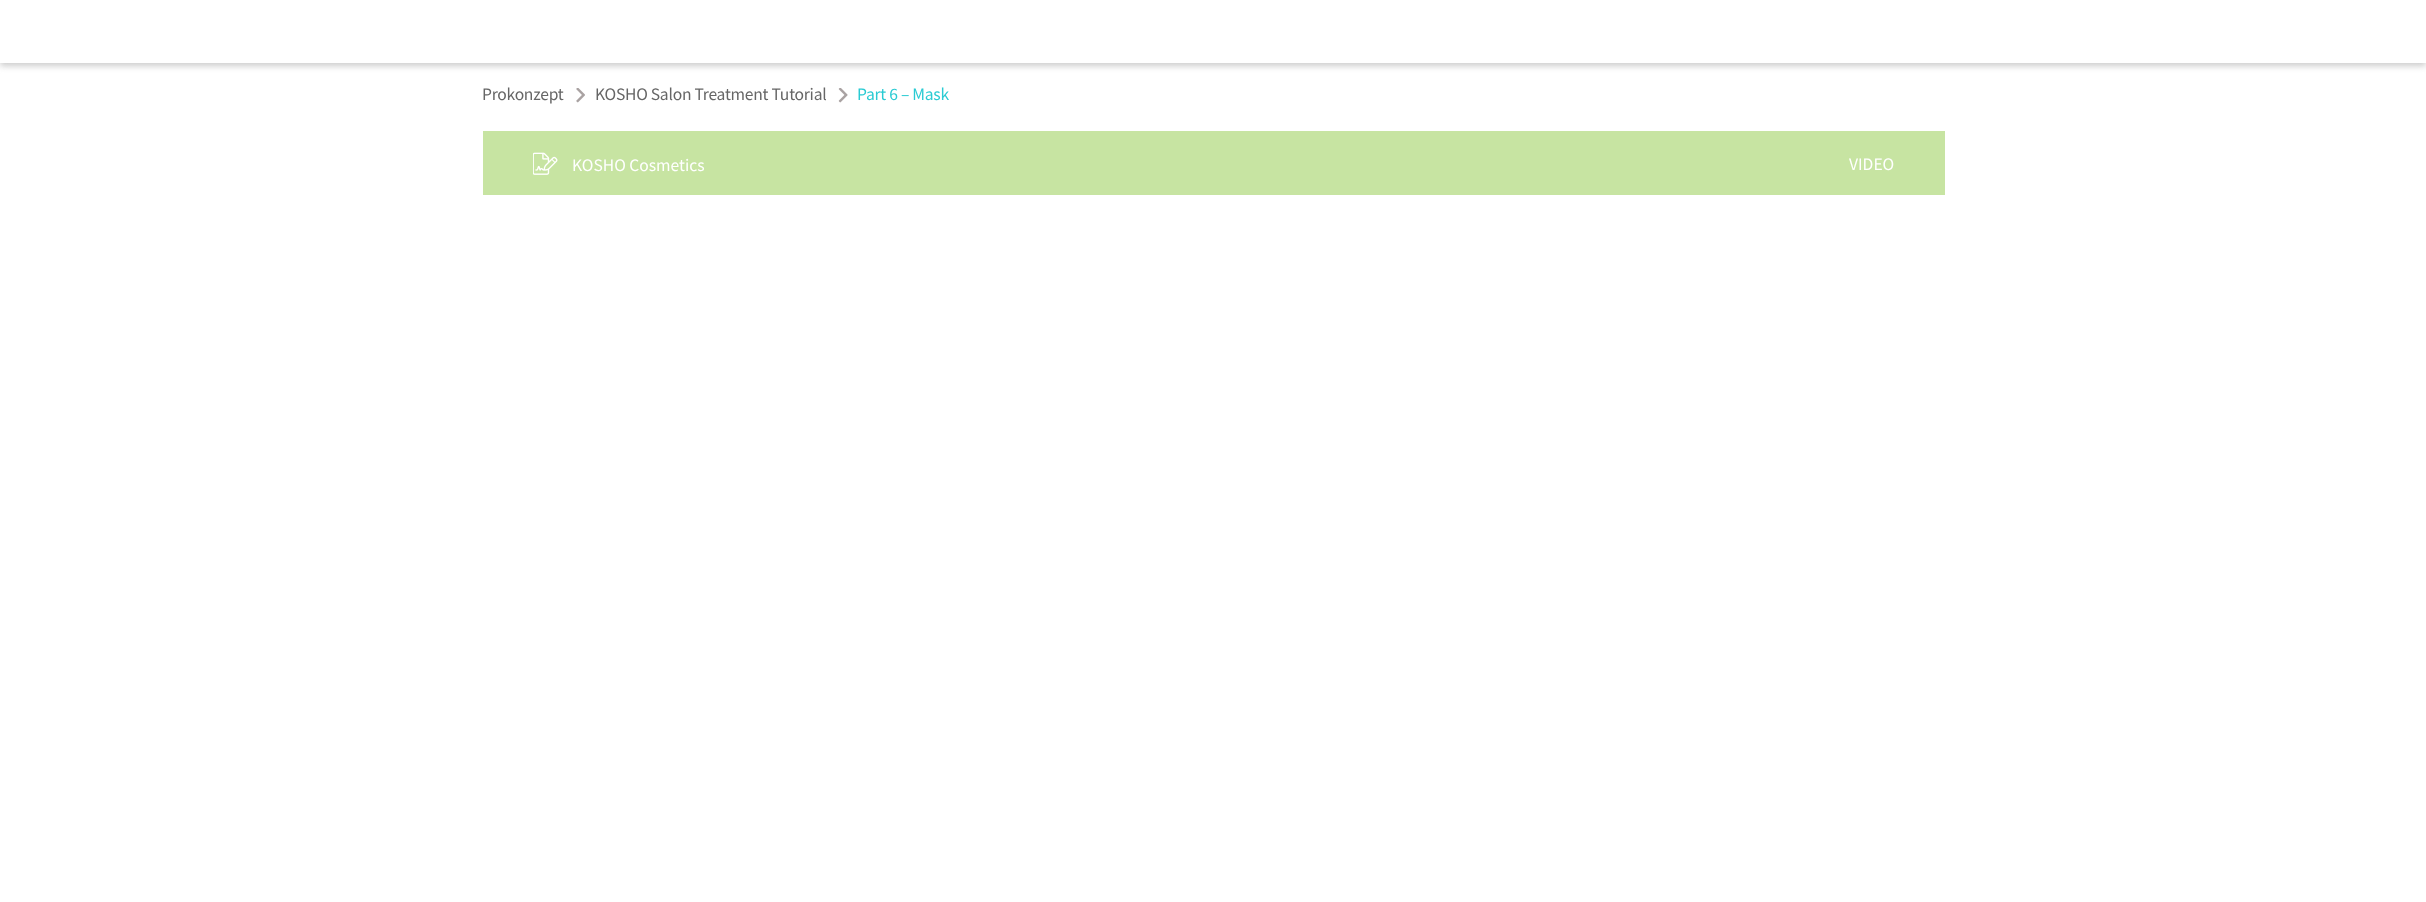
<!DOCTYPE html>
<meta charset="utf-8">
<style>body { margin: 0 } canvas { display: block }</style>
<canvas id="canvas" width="2426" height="902"></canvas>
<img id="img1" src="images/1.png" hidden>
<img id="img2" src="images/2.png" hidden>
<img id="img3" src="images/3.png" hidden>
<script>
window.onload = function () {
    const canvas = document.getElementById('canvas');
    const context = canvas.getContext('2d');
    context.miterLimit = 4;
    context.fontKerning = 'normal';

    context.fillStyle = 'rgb(255, 255, 255)';
    context.fillRect(0, 0, 2426, 902);
    context.fillStyle = 'rgb(204, 204, 204)';
    context.filter = 'blur(3px)';
    context.beginPath();
    context.rect(0, 4, 2426, 62);
    context.fill();
    context.filter = 'none';
    context.fillStyle = 'rgb(255, 255, 255)';
    context.fillRect(0, 0, 2426, 63);
    context.drawImage(document.getElementById('img1'), 576, 88, 9, 15);
    context.drawImage(document.getElementById('img2'), 838, 88, 10, 15);
    context.fillStyle = 'rgb(199, 228, 162)';
    context.fillRect(483, 131, 1462, 64);
    context.drawImage(document.getElementById('img3'), 533, 152, 25, 23);
    context.letterSpacing = '-0.25px';
    context.font = '17.5px Source Sans Pro';
    context.fillStyle = 'rgb(102, 102, 102)';
    context.fillText('Prokonzept', 482, 100);
    context.fillText('KOSHO Salon Treatment Tutorial', 595, 100);
    context.fillStyle = 'rgb(42, 203, 211)';
    context.fillText('Part 6 – Mask', 857, 100);
    context.letterSpacing = '0px';
    context.fillStyle = 'rgb(255, 255, 255)';
    context.fillText('KOSHO Cosmetics', 572, 171);
    context.fillText('VIDEO', 1849, 170);
};
</script>
